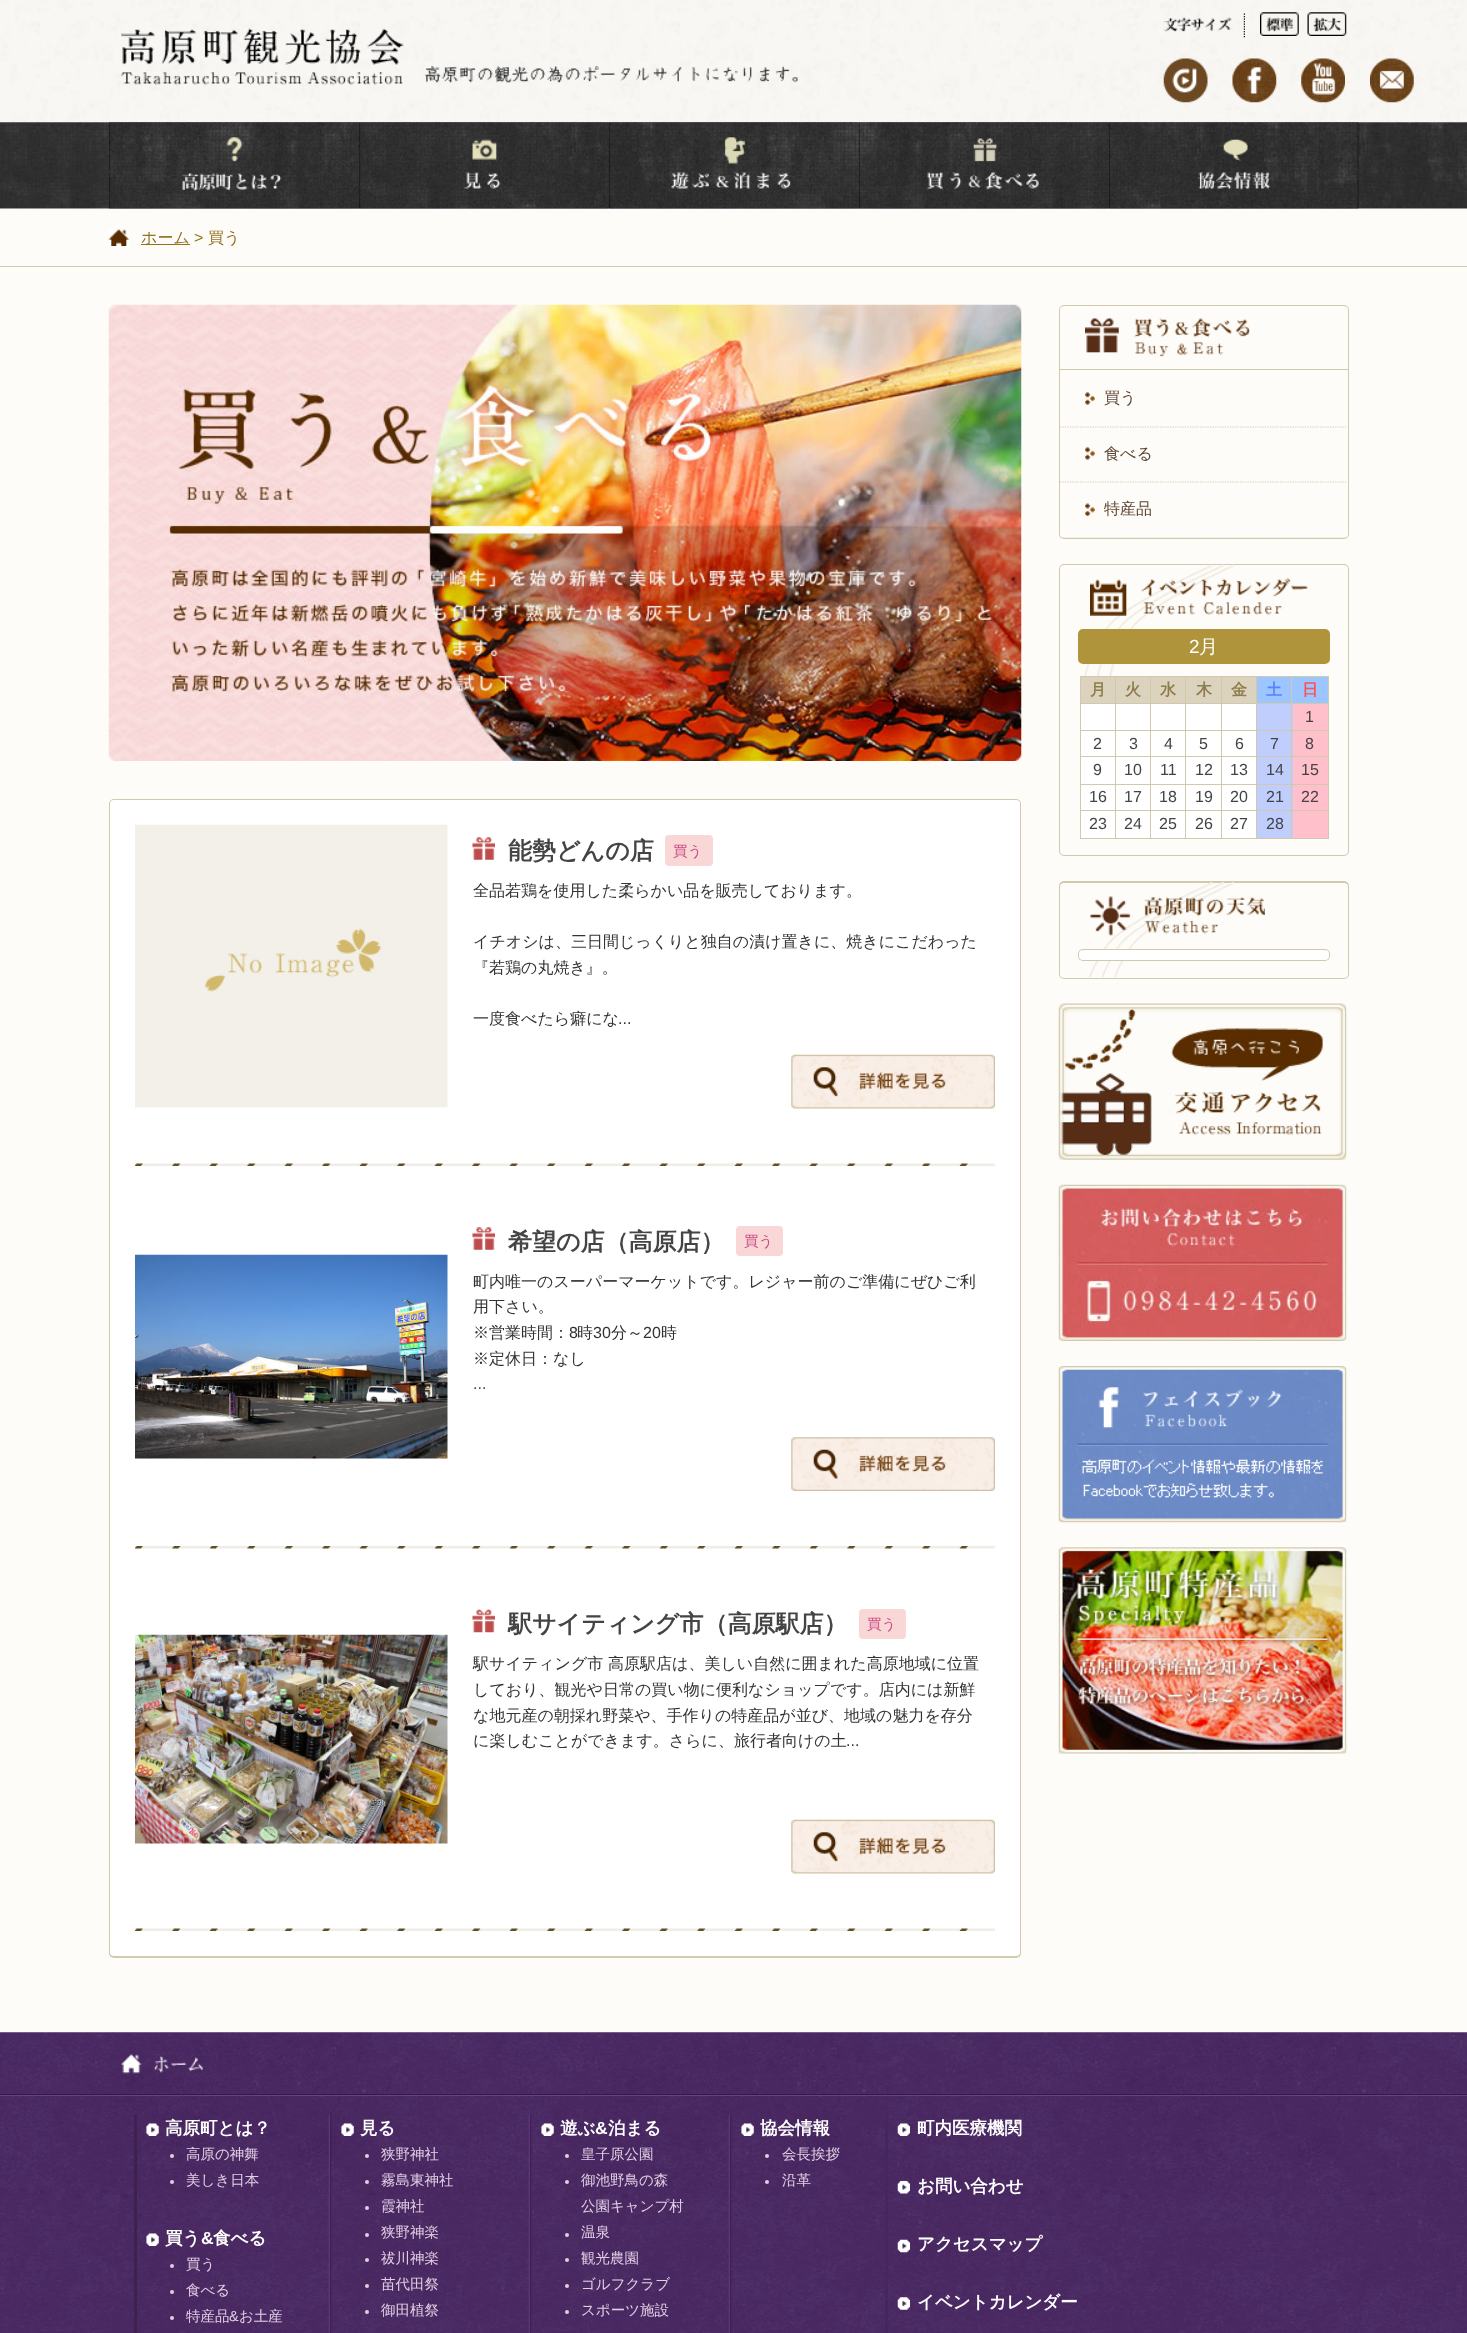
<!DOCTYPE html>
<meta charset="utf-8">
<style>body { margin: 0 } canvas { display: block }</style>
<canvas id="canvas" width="1467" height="2333"></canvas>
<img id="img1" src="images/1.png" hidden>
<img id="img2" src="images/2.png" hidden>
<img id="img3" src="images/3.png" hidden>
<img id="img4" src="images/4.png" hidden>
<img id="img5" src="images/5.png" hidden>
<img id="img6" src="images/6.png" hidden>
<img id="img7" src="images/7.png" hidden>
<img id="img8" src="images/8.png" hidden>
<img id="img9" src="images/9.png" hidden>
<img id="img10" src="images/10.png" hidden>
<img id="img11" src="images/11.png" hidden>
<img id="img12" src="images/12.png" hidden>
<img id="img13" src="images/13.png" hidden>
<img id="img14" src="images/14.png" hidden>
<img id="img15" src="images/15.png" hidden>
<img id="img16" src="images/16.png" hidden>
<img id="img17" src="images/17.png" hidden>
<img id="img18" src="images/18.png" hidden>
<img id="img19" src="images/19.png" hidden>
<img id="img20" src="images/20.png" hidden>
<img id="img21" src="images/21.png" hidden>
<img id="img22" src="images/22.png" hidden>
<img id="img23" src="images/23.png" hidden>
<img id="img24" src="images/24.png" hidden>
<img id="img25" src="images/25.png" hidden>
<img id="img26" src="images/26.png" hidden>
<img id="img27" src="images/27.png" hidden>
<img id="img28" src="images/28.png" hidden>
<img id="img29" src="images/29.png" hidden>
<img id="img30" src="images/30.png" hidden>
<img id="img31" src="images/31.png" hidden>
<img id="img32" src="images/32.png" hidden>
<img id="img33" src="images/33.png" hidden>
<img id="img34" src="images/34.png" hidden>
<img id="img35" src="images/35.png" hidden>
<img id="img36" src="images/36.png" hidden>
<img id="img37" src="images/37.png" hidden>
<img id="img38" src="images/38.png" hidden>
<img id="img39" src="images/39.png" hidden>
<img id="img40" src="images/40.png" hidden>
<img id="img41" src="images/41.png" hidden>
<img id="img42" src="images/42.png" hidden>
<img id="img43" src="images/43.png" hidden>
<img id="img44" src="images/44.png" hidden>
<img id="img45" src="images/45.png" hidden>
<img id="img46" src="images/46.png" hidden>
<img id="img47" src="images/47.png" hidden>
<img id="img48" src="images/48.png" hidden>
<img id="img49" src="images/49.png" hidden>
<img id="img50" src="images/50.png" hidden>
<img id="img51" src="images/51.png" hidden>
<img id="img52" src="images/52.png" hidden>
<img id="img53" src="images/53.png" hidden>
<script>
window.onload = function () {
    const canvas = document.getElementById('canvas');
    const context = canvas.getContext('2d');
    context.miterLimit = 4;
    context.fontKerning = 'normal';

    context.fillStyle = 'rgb(255, 255, 255)';
    context.fillRect(0, 0, 1467, 2333);
    context.drawImage(document.getElementById('img1'), 0, 0, 1467, 123);
    context.drawImage(document.getElementById('img2'), 121, 28, 283, 57);
    context.drawImage(document.getElementById('img3'), 425, 66, 373, 17);
    context.drawImage(document.getElementById('img4'), 1163, 12, 82, 26);
    context.drawImage(document.getElementById('img5'), 1260, 12, 39, 24);
    context.drawImage(document.getElementById('img6'), 1307, 12, 40, 24);
    context.drawImage(document.getElementById('img7'), 1163, 58, 45, 45);
    context.drawImage(document.getElementById('img8'), 1232, 58, 45, 45);
    context.drawImage(document.getElementById('img9'), 1301, 58, 44, 45);
    context.drawImage(document.getElementById('img10'), 1370, 58, 44, 45);
    context.drawImage(document.getElementById('img11'), 0, 122, 1467, 87);
    context.drawImage(document.getElementById('img12'), 109, 122, 250, 87);
    context.drawImage(document.getElementById('img13'), 359, 122, 250, 87);
    context.drawImage(document.getElementById('img14'), 609, 122, 250, 87);
    context.drawImage(document.getElementById('img15'), 859, 122, 250, 87);
    context.drawImage(document.getElementById('img16'), 1109, 122, 250, 87);
    context.fillStyle = 'rgb(253, 252, 249)';
    context.fillRect(0, 209, 1467, 1824);
    context.fillStyle = 'rgb(211, 201, 174)';
    context.fillRect(0, 266, 1467, 1);
    context.drawImage(document.getElementById('img17'), 108, 229, 21, 17);
    context.fillStyle = 'rgb(146, 114, 30)';
    context.fillRect(141, 244, 49, 1);
    context.fillStyle = 'rgb(210, 200, 171)';
    context.beginPath();
    context.roundRect(1059, 305, 290, 234, 5);
    context.fill();
    context.fillStyle = 'rgb(253, 252, 249)';
    context.beginPath();
    context.roundRect(1060, 306, 288, 232, 4);
    context.fill();
    context.drawImage(document.getElementById('img18'), 1085, 318, 165, 39);
    context.fillStyle = 'rgb(211, 201, 172)';
    context.fillRect(1060, 369, 288, 1);
    context.beginPath();
    context.moveTo(1060, 427);
    context.lineTo(1347.5, 427);
    context.strokeStyle = 'rgb(211, 201, 172)';
    context.lineWidth = 1.2;
    context.setLineDash([1.25, 1.25]);
    context.stroke();
    context.drawImage(document.getElementById('img19'), 1085, 392, 10, 13);
    context.beginPath();
    context.moveTo(1060, 482);
    context.lineTo(1347.5, 482);
    context.stroke();
    context.drawImage(document.getElementById('img19'), 1085, 447, 10, 13);
    context.save();
    context.beginPath();
    context.rect(1060, 370, 288, 168);
    context.clip();
    context.beginPath();
    context.moveTo(1060, 538);
    context.lineTo(1347.5, 538);
    context.stroke();
    context.restore();
    context.drawImage(document.getElementById('img20'), 1085, 503, 10, 13);
    context.fillStyle = 'rgb(210, 200, 171)';
    context.beginPath();
    context.roundRect(1059, 564, 290, 292, 5);
    context.fill();
    context.fillStyle = 'rgb(253, 252, 249)';
    context.beginPath();
    context.roundRect(1060, 565, 288, 290, 4);
    context.fill();
    context.drawImage(document.getElementById('img21'), 1083, 564, 151, 112);
    context.drawImage(document.getElementById('img22'), 1090, 578, 218, 38);
    context.fillStyle = 'rgb(176, 148, 60)';
    context.beginPath();
    context.roundRect(1078, 629, 252, 35, 5);
    context.fill();
    context.fillStyle = 'rgb(255, 255, 255)';
    context.fillRect(1081, 704, 175, 134);
    context.fillStyle = 'rgb(210, 200, 172)';
    context.fillRect(1080, 676, 249, 1);
    context.fillRect(1328, 676, 1, 163);
    context.fillRect(1080, 838, 249, 1);
    context.fillRect(1080, 676, 1, 163);
    context.fillStyle = 'rgb(220, 211, 190)';
    context.fillRect(1081, 677, 34, 26);
    context.fillRect(1116, 677, 34, 26);
    context.fillStyle = 'rgb(210, 200, 172)';
    context.fillRect(1291, 703, 38, 1);
    context.fillStyle = 'rgb(192, 206, 254)';
    context.fillRect(1257, 704, 36, 134);
    context.fillStyle = 'rgb(255, 192, 203)';
    context.fillRect(1293, 704, 35, 134);
    context.fillStyle = 'rgb(210, 200, 172)';
    context.fillRect(1291, 730, 38, 1);
    context.fillRect(1291, 756, 38, 1);
    context.fillRect(1291, 784, 38, 1);
    context.fillRect(1291, 810, 38, 1);
    context.fillRect(1291, 810, 1, 29);
    context.fillRect(1256, 810, 37, 1);
    context.fillRect(1291, 784, 1, 27);
    context.fillRect(1256, 784, 37, 1);
    context.fillRect(1291, 756, 1, 29);
    context.fillRect(1256, 756, 37, 1);
    context.fillRect(1291, 730, 1, 28);
    context.fillRect(1256, 730, 37, 1);
    context.fillRect(1291, 703, 1, 28);
    context.fillRect(1256, 703, 37, 1);
    context.fillRect(1256, 810, 1, 29);
    context.fillRect(1221, 810, 37, 1);
    context.fillRect(1256, 784, 1, 27);
    context.fillRect(1221, 784, 37, 1);
    context.fillRect(1256, 756, 1, 29);
    context.fillRect(1221, 756, 37, 1);
    context.fillRect(1256, 730, 1, 28);
    context.fillRect(1221, 730, 37, 1);
    context.fillRect(1256, 703, 1, 28);
    context.fillRect(1221, 703, 37, 1);
    context.fillRect(1221, 810, 1, 29);
    context.fillRect(1185, 810, 38, 1);
    context.fillRect(1221, 784, 1, 27);
    context.fillRect(1185, 784, 38, 1);
    context.fillRect(1221, 756, 1, 29);
    context.fillRect(1185, 756, 38, 1);
    context.fillRect(1221, 730, 1, 28);
    context.fillRect(1185, 730, 38, 1);
    context.fillRect(1221, 703, 1, 28);
    context.fillRect(1185, 703, 38, 1);
    context.fillRect(1185, 810, 1, 29);
    context.fillRect(1150, 810, 36, 1);
    context.fillRect(1185, 784, 1, 27);
    context.fillRect(1150, 784, 36, 1);
    context.fillRect(1185, 756, 1, 29);
    context.fillRect(1150, 756, 36, 1);
    context.fillRect(1185, 730, 1, 28);
    context.fillRect(1150, 730, 36, 1);
    context.fillRect(1185, 703, 1, 28);
    context.fillRect(1150, 703, 36, 1);
    context.fillRect(1150, 810, 1, 29);
    context.fillRect(1115, 810, 36, 1);
    context.fillRect(1150, 784, 1, 27);
    context.fillRect(1115, 784, 36, 1);
    context.fillRect(1150, 756, 1, 29);
    context.fillRect(1115, 756, 36, 1);
    context.fillRect(1150, 730, 1, 28);
    context.fillRect(1115, 730, 36, 1);
    context.fillRect(1150, 703, 1, 28);
    context.fillRect(1115, 703, 36, 1);
    context.fillRect(1115, 810, 1, 29);
    context.fillRect(1080, 810, 36, 1);
    context.fillRect(1115, 784, 1, 27);
    context.fillRect(1080, 784, 36, 1);
    context.fillRect(1115, 756, 1, 29);
    context.fillRect(1080, 756, 36, 1);
    context.fillRect(1115, 730, 1, 28);
    context.fillRect(1080, 730, 36, 1);
    context.fillRect(1115, 703, 1, 28);
    context.fillRect(1080, 703, 36, 1);
    context.fillRect(1115, 676, 1, 28);
    context.fillStyle = 'rgb(220, 211, 190)';
    context.fillRect(1151, 677, 34, 26);
    context.fillStyle = 'rgb(210, 200, 172)';
    context.fillRect(1150, 676, 1, 28);
    context.fillStyle = 'rgb(220, 211, 190)';
    context.fillRect(1186, 677, 35, 26);
    context.fillStyle = 'rgb(210, 200, 172)';
    context.fillRect(1185, 676, 1, 28);
    context.fillStyle = 'rgb(220, 211, 190)';
    context.fillRect(1222, 677, 34, 26);
    context.fillStyle = 'rgb(210, 200, 172)';
    context.fillRect(1221, 676, 1, 28);
    context.fillStyle = 'rgb(157, 197, 255)';
    context.fillRect(1257, 677, 71, 26);
    context.fillStyle = 'rgb(210, 200, 172)';
    context.fillRect(1256, 676, 1, 28);
    context.fillRect(1291, 676, 1, 28);
    context.fillStyle = 'rgb(210, 200, 171)';
    context.beginPath();
    context.roundRect(1059, 881, 290, 98, 5);
    context.fill();
    context.fillStyle = 'rgb(253, 252, 249)';
    context.beginPath();
    context.roundRect(1060, 883, 288, 95, 4);
    context.fill();
    context.drawImage(document.getElementById('img23'), 1088, 882, 146, 96);
    context.drawImage(document.getElementById('img24'), 1090, 896, 175, 40);
    context.fillStyle = 'rgb(210, 200, 171)';
    context.beginPath();
    context.roundRect(1078, 949, 252, 12, 5);
    context.fill();
    context.fillStyle = 'rgb(255, 255, 255)';
    context.beginPath();
    context.roundRect(1079, 950, 250, 10, 4);
    context.fill();
    context.drawImage(document.getElementById('img25'), 1058, 1003, 289, 157);
    context.drawImage(document.getElementById('img26'), 1058, 1184, 289, 157);
    context.drawImage(document.getElementById('img27'), 1058, 1366, 289, 157);
    context.drawImage(document.getElementById('img28'), 1058, 1547, 289, 207);
    context.drawImage(document.getElementById('img29'), 108, 304, 914, 457);
    context.fillStyle = 'rgb(211, 201, 173)';
    context.beginPath();
    context.roundRect(109, 799, 912, 1159, 5);
    context.fill();
    context.fillStyle = 'rgb(255, 255, 255)';
    context.beginPath();
    context.roundRect(110, 800, 910, 1156, 4);
    context.fill();
    context.drawImage(document.getElementById('img30'), 135, 1163, 860, 3);
    context.drawImage(document.getElementById('img31'), 135, 824, 313, 284);
    context.drawImage(document.getElementById('img32'), 472, 837, 23, 23);
    context.fillStyle = 'rgb(249, 215, 215)';
    context.beginPath();
    context.roundRect(665, 835, 48, 31, 4);
    context.fill();
    context.drawImage(document.getElementById('img33'), 791, 1054, 204, 55);
    context.drawImage(document.getElementById('img34'), 135, 1546, 860, 3);
    context.drawImage(document.getElementById('img32'), 472, 1227, 23, 23);
    context.beginPath();
    context.roundRect(736, 1226, 47, 30, 4);
    context.fill();
    context.drawImage(document.getElementById('img35'), 135, 1254, 313, 205);
    context.drawImage(document.getElementById('img36'), 791, 1437, 204, 54);
    context.drawImage(document.getElementById('img30'), 135, 1928, 860, 3);
    context.drawImage(document.getElementById('img37'), 472, 1609, 23, 24);
    context.beginPath();
    context.roundRect(859, 1609, 47, 30, 4);
    context.fill();
    context.drawImage(document.getElementById('img38'), 135, 1634, 313, 210);
    context.drawImage(document.getElementById('img39'), 791, 1819, 204, 55);
    context.drawImage(document.getElementById('img40'), 0, 2032, 1467, 301);
    context.fillStyle = 'rgb(51, 28, 68)';
    context.fillRect(0, 2094, 1467, 1);
    context.drawImage(document.getElementById('img41'), 121, 2054, 82, 20);
    context.fillStyle = 'rgb(107, 60, 142)';
    context.fillRect(0, 2095, 1467, 1);
    context.fillStyle = 'rgb(62, 33, 83)';
    context.fillRect(134, 2115, 3, 218);
    context.drawImage(document.getElementById('img42'), 146, 2123, 13, 13);
    context.fillStyle = 'rgb(225, 206, 228)';
    context.beginPath();
    context.arc(172, 2156, 2, 0, 2 * Math.PI);
    context.fill();
    context.beginPath();
    context.arc(172, 2182, 2, 0, 2 * Math.PI);
    context.fill();
    context.drawImage(document.getElementById('img43'), 146, 2233, 13, 13);
    context.beginPath();
    context.arc(172, 2266, 2, 0, 2 * Math.PI);
    context.fill();
    context.beginPath();
    context.arc(172, 2292, 2, 0, 2 * Math.PI);
    context.fill();
    context.beginPath();
    context.arc(172, 2318, 2, 0, 2 * Math.PI);
    context.fill();
    context.drawImage(document.getElementById('img44'), 328, 2115, 4, 218);
    context.drawImage(document.getElementById('img45'), 341, 2123, 13, 13);
    context.beginPath();
    context.arc(367, 2156, 2, 0, 2 * Math.PI);
    context.fill();
    context.beginPath();
    context.arc(367, 2182, 2, 0, 2 * Math.PI);
    context.fill();
    context.beginPath();
    context.arc(367, 2208, 2, 0, 2 * Math.PI);
    context.fill();
    context.beginPath();
    context.arc(367, 2235, 2, 0, 2 * Math.PI);
    context.fill();
    context.beginPath();
    context.arc(367, 2260, 2, 0, 2 * Math.PI);
    context.fill();
    context.beginPath();
    context.arc(367, 2286, 2, 0, 2 * Math.PI);
    context.fill();
    context.beginPath();
    context.arc(367, 2312, 2, 0, 2 * Math.PI);
    context.fill();
    context.drawImage(document.getElementById('img46'), 528, 2115, 4, 218);
    context.drawImage(document.getElementById('img47'), 541, 2123, 13, 13);
    context.beginPath();
    context.arc(567, 2156, 2, 0, 2 * Math.PI);
    context.fill();
    context.beginPath();
    context.arc(567, 2182, 2, 0, 2 * Math.PI);
    context.fill();
    context.beginPath();
    context.arc(567, 2235, 2, 0, 2 * Math.PI);
    context.fill();
    context.beginPath();
    context.arc(567, 2260, 2, 0, 2 * Math.PI);
    context.fill();
    context.beginPath();
    context.arc(567, 2286, 2, 0, 2 * Math.PI);
    context.fill();
    context.beginPath();
    context.arc(567, 2312, 2, 0, 2 * Math.PI);
    context.fill();
    context.drawImage(document.getElementById('img48'), 728, 2115, 4, 218);
    context.drawImage(document.getElementById('img49'), 741, 2123, 13, 13);
    context.beginPath();
    context.arc(767, 2156, 2, 0, 2 * Math.PI);
    context.fill();
    context.beginPath();
    context.arc(767, 2182, 2, 0, 2 * Math.PI);
    context.fill();
    context.fillStyle = 'rgb(69, 38, 93)';
    context.fillRect(885, 2115, 3, 218);
    context.drawImage(document.getElementById('img50'), 897, 2123, 13, 13);
    context.drawImage(document.getElementById('img51'), 897, 2181, 13, 13);
    context.drawImage(document.getElementById('img52'), 897, 2239, 13, 14);
    context.drawImage(document.getElementById('img53'), 897, 2297, 13, 13);
    context.font = '500 16px WenQuanYi Zen Hei';
    context.fillStyle = 'rgb(146, 114, 30)';
    context.fillText('ホーム', 141, 243);
    context.font = '16px Liberation Sans';
    context.fillText('>', 194, 243);
    context.font = '500 16px WenQuanYi Zen Hei';
    context.fillText('買う', 208, 243);
    context.fillStyle = 'rgb(95, 70, 51)';
    context.fillText('買う', 1104, 403);
    context.fillText('食べる', 1104, 459);
    context.fillText('特産品', 1104, 514);
    context.font = '19px Liberation Sans';
    context.fillStyle = 'rgb(255, 255, 255)';
    context.fillText('2', 1189, 653);
    context.font = '500 19px WenQuanYi Zen Hei';
    context.fillText('月', 1199, 653);
    context.font = 'bold 16px WenQuanYi Zen Hei';
    context.fillStyle = 'rgb(142, 125, 77)';
    context.fillText('月', 1090, 695);
    context.fillText('火', 1125, 695);
    context.fillText('水', 1160, 695);
    context.fillText('木', 1196, 695);
    context.fillText('金', 1231, 695);
    context.fillStyle = 'rgb(81, 133, 255)';
    context.fillText('土', 1266, 695);
    context.fillStyle = 'rgb(255, 81, 81)';
    context.fillText('日', 1302, 695);
    context.font = '16px Liberation Sans';
    context.fillStyle = 'rgb(68, 68, 68)';
    context.fillText('1', 1305, 722);
    context.fillText('2', 1093, 749);
    context.fillText('3', 1129, 749);
    context.fillText('4', 1164, 749);
    context.fillText('5', 1199, 749);
    context.fillText('6', 1235, 749);
    context.fillText('7', 1270, 749);
    context.fillText('8', 1305, 749);
    context.fillText('9', 1093, 775);
    context.fillText('10', 1124, 775);
    context.fillText('11', 1160, 775);
    context.fillText('12', 1195, 775);
    context.fillText('13', 1230, 775);
    context.fillText('14', 1266, 775);
    context.fillText('15', 1301, 775);
    context.fillText('16', 1089, 802);
    context.fillText('17', 1124, 802);
    context.fillText('18', 1159, 802);
    context.fillText('19', 1195, 802);
    context.fillText('20', 1230, 802);
    context.fillText('21', 1266, 802);
    context.fillText('22', 1301, 802);
    context.fillText('23', 1089, 829);
    context.fillText('24', 1124, 829);
    context.fillText('25', 1159, 829);
    context.fillText('26', 1195, 829);
    context.fillText('27', 1230, 829);
    context.fillText('28', 1266, 829);
    context.font = 'bold 24px WenQuanYi Zen Hei';
    context.fillText('能勢どんの店', 508, 859);
    context.font = '500 14.5px WenQuanYi Zen Hei';
    context.fillStyle = 'rgb(204, 75, 131)';
    context.fillText('買う', 673, 856);
    context.font = '500 16px WenQuanYi Zen Hei';
    context.fillStyle = 'rgb(51, 51, 51)';
    context.fillText('全品若鶏を使用した柔らかい品を販売しております。', 473, 896);
    context.fillText('イチオシは、三日間じっくりと独自の漬け置きに、焼きにこだわった', 473, 947);
    context.fillText('『若鶏の丸焼き』。', 473, 973);
    context.fillText('一度食べたら癖にな', 473, 1024);
    context.font = '16px Liberation Sans';
    context.fillText('...', 618, 1024);
    context.font = 'bold 24px WenQuanYi Zen Hei';
    context.fillStyle = 'rgb(68, 68, 68)';
    context.fillText('希望の店（高原店）', 508, 1250);
    context.font = '500 14.5px WenQuanYi Zen Hei';
    context.fillStyle = 'rgb(204, 75, 131)';
    context.fillText('買う', 744, 1246);
    context.font = '500 16px WenQuanYi Zen Hei';
    context.fillStyle = 'rgb(51, 51, 51)';
    context.fillText('町内唯一のスーパーマーケットです。レジャー前のご準備にぜひご利', 473, 1287);
    context.fillText('用下さい。', 473, 1312);
    context.fillText('※営業時間：', 473, 1338);
    context.font = '16px Liberation Sans';
    context.fillText('8', 569, 1338);
    context.font = '500 16px WenQuanYi Zen Hei';
    context.fillText('時', 577, 1338);
    context.font = '16px Liberation Sans';
    context.fillText('30', 593, 1338);
    context.font = '500 16px WenQuanYi Zen Hei';
    context.fillText('分～', 611, 1338);
    context.font = '16px Liberation Sans';
    context.fillText('20', 643, 1338);
    context.font = '500 16px WenQuanYi Zen Hei';
    context.fillText('時', 661, 1338);
    context.fillText('※定休日：なし', 473, 1364);
    context.font = '16px Liberation Sans';
    context.fillStyle = 'rgb(68, 68, 68)';
    context.fillText('...', 473, 1389);
    context.font = 'bold 24px WenQuanYi Zen Hei';
    context.fillText('駅サイティング市（高原駅店）', 508, 1632);
    context.font = '500 14.5px WenQuanYi Zen Hei';
    context.fillStyle = 'rgb(204, 75, 131)';
    context.fillText('買う', 867, 1629);
    context.font = '500 16px WenQuanYi Zen Hei';
    context.fillStyle = 'rgb(51, 51, 51)';
    context.fillText('駅サイティング市 高原駅店は、美しい自然に囲まれた高原地域に位置', 473, 1669);
    context.fillText('しており、観光や日常の買い物に便利なショップです。店内には新鮮', 473, 1695);
    context.fillText('な地元産の朝採れ野菜や、手作りの特産品が並び、地域の魅力を存分', 473, 1721);
    context.fillText('に楽しむことができます。さらに、旅行者向けの土', 473, 1746);
    context.font = '16px Liberation Sans';
    context.fillText('...', 846, 1746);
    context.font = 'bold 17.5px WenQuanYi Zen Hei';
    context.fillStyle = 'rgb(255, 255, 255)';
    context.fillText('高原町とは？', 165, 2134);
    context.font = '500 14.5px WenQuanYi Zen Hei';
    context.fillStyle = 'rgb(225, 206, 228)';
    context.fillText('高原の神舞', 186, 2159);
    context.fillText('美しき日本', 186, 2185);
    context.font = 'bold 17.5px WenQuanYi Zen Hei';
    context.fillStyle = 'rgb(255, 255, 255)';
    context.fillText('買う', 165, 2244);
    context.font = 'bold 17.5px Liberation Sans';
    context.fillText('&', 201, 2244);
    context.font = 'bold 17.5px WenQuanYi Zen Hei';
    context.fillText('食べる', 213, 2244);
    context.font = '500 14.5px WenQuanYi Zen Hei';
    context.fillStyle = 'rgb(225, 206, 228)';
    context.fillText('買う', 186, 2269);
    context.fillText('食べる', 186, 2295);
    context.fillText('特産品', 186, 2321);
    context.font = '14.5px Liberation Sans';
    context.fillText('&', 229, 2321);
    context.font = '500 14.5px WenQuanYi Zen Hei';
    context.fillText('お土産', 239, 2321);
    context.font = 'bold 17.5px WenQuanYi Zen Hei';
    context.fillStyle = 'rgb(255, 255, 255)';
    context.fillText('見る', 360, 2134);
    context.font = '500 14.5px WenQuanYi Zen Hei';
    context.fillStyle = 'rgb(225, 206, 228)';
    context.fillText('狭野神社', 381, 2159);
    context.fillText('霧島東神社', 381, 2185);
    context.fillText('霞神社', 381, 2211);
    context.fillText('狭野神楽', 381, 2237);
    context.fillText('祓川神楽', 381, 2263);
    context.fillText('苗代田祭', 381, 2289);
    context.fillText('御田植祭', 381, 2315);
    context.font = 'bold 17.5px WenQuanYi Zen Hei';
    context.fillStyle = 'rgb(255, 255, 255)';
    context.fillText('遊ぶ', 560, 2134);
    context.font = 'bold 17.5px Liberation Sans';
    context.fillText('&', 595, 2134);
    context.font = 'bold 17.5px WenQuanYi Zen Hei';
    context.fillText('泊まる', 608, 2134);
    context.font = '500 14.5px WenQuanYi Zen Hei';
    context.fillStyle = 'rgb(225, 206, 228)';
    context.fillText('皇子原公園', 581, 2159);
    context.fillText('御池野鳥の森', 581, 2185);
    context.fillText('公園キャンプ村', 581, 2211);
    context.fillText('温泉', 581, 2237);
    context.fillText('観光農園', 581, 2263);
    context.fillText('ゴルフクラブ', 581, 2289);
    context.fillText('スポーツ施設', 581, 2315);
    context.font = 'bold 17.5px WenQuanYi Zen Hei';
    context.fillStyle = 'rgb(255, 255, 255)';
    context.fillText('協会情報', 760, 2134);
    context.font = '500 14.5px WenQuanYi Zen Hei';
    context.fillStyle = 'rgb(225, 206, 228)';
    context.fillText('会長挨拶', 782, 2159);
    context.fillText('沿革', 782, 2185);
    context.font = 'bold 17.5px WenQuanYi Zen Hei';
    context.fillStyle = 'rgb(255, 255, 255)';
    context.fillText('町内医療機関', 917, 2134);
    context.fillText('お問い合わせ', 917, 2192);
    context.fillText('アクセスマップ', 917, 2250);
    context.fillText('イベントカレンダー', 917, 2308);
};
</script>
